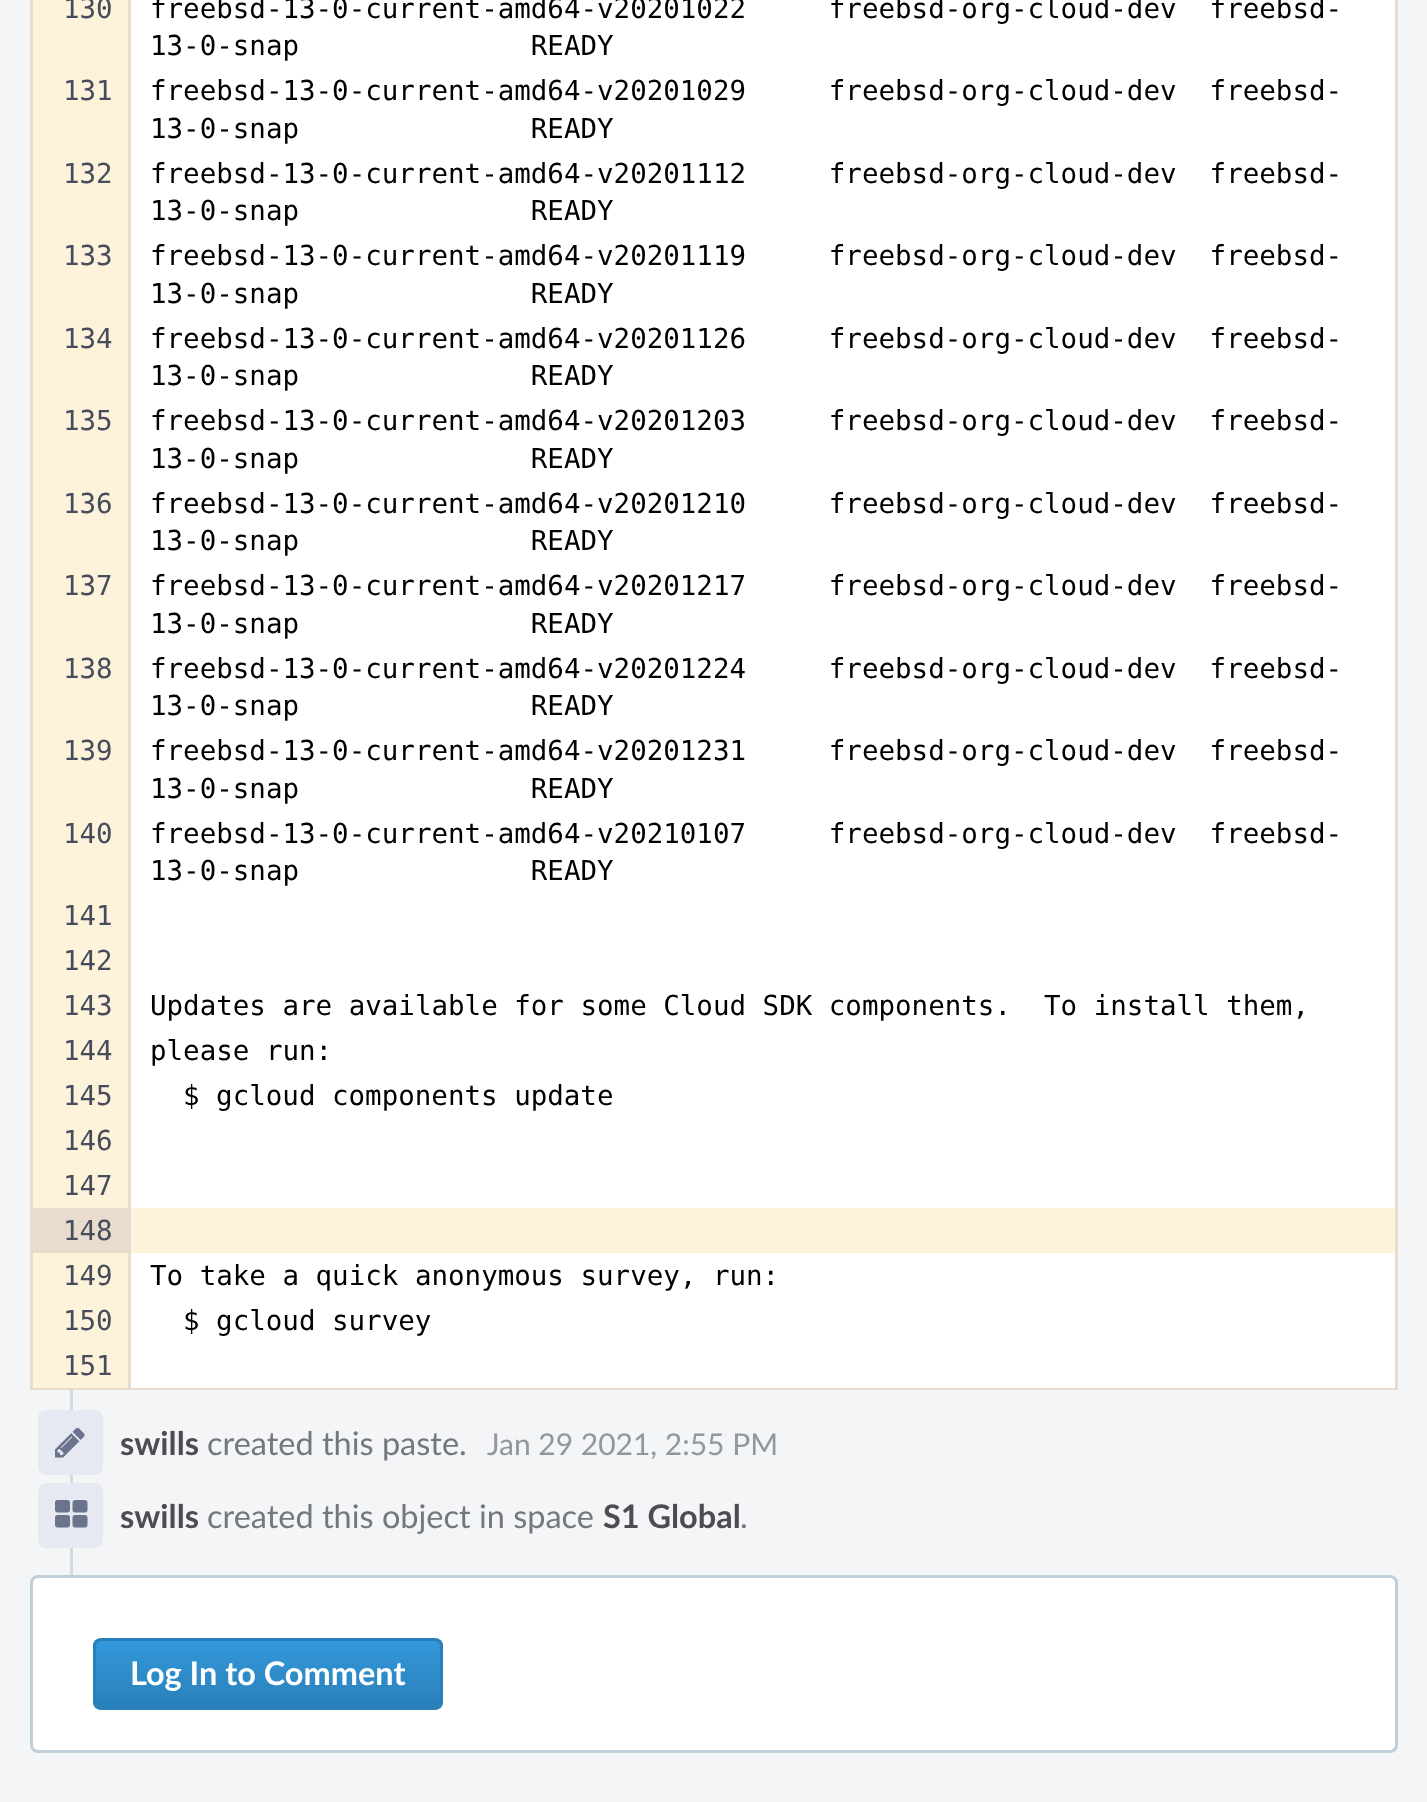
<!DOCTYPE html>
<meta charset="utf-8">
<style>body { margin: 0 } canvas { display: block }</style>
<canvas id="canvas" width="1427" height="1802"></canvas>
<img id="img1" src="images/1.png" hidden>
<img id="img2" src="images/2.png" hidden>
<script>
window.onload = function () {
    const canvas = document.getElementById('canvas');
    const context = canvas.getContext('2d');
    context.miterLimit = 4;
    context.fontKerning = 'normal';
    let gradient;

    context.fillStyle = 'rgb(243, 245, 247)';
    context.fillRect(0, 0, 1427, 1802);
    context.strokeStyle = 'rgb(233, 219, 205)';
    context.lineWidth = 3;
    context.strokeRect(31.5, -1.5, 1365, 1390);
    context.fillStyle = 'rgb(253, 243, 218)';
    context.fillRect(33, 0, 95, 1208);
    context.fillStyle = 'rgb(255, 255, 255)';
    context.fillRect(131, 0, 1264, 1208);
    context.fillStyle = 'rgb(233, 219, 205)';
    context.fillRect(33, 1208, 95, 45);
    context.fillStyle = 'rgb(253, 243, 218)';
    context.fillRect(131, 1208, 1264, 45);
    context.fillRect(33, 1253, 95, 135);
    context.fillStyle = 'rgb(255, 255, 255)';
    context.fillRect(131, 1253, 1264, 135);
    context.fillStyle = 'rgb(233, 219, 205)';
    context.fillRect(128, 0, 3, 1388);
    context.fillStyle = 'rgb(213, 216, 225)';
    context.fillRect(70, 1390, 3, 185);
    context.fillStyle = 'rgb(230, 233, 241)';
    context.beginPath();
    context.roundRect(38, 1410, 65, 65, 8);
    context.fill();
    context.drawImage(document.getElementById('img1'), 55, 1427, 30, 31);
    context.beginPath();
    context.roundRect(38, 1483, 65, 65, 8);
    context.fill();
    context.drawImage(document.getElementById('img2'), 55, 1500, 33, 28);
    context.fillStyle = 'rgb(255, 255, 255)';
    context.beginPath();
    context.roundRect(31.5, 1576.5, 1365, 175, 6.5);
    context.fill();
    context.strokeStyle = 'rgb(191, 207, 218)';
    context.stroke();
    context.save();
    context.beginPath();
    context.roundRect(93, 1638, 350, 72, 8);
    context.clip();
    gradient = context.createLinearGradient(268, 1640, 268, 1708);
    gradient.addColorStop(0, 'rgb(52, 152, 219)');
    gradient.addColorStop(1, 'rgb(41, 128, 185)');
    context.fillStyle = gradient;
    context.fillRect(93, 1640, 350, 68);
    context.restore();
    context.beginPath();
    context.roundRect(94.5, 1639.5, 347, 69, 6.5);
    context.strokeStyle = 'rgb(41, 128, 185)';
    context.stroke();
    context.font = '27.5px DejaVu Sans Mono';
    context.fillStyle = 'rgb(70, 76, 92)';
    context.fillText('130', 63, 18);
    context.fillStyle = 'rgb(0, 0, 0)';
    context.fillText('freebsd-13-0-current-amd64-v20201022     freebsd-org-cloud-dev  freebsd-', 150, 18);
    context.fillText('13-0-snap              READY', 150, 55);
    context.fillStyle = 'rgb(70, 76, 92)';
    context.fillText('131', 63, 100);
    context.fillStyle = 'rgb(0, 0, 0)';
    context.fillText('freebsd-13-0-current-amd64-v20201029     freebsd-org-cloud-dev  freebsd-', 150, 100);
    context.fillText('13-0-snap              READY', 150, 138);
    context.fillStyle = 'rgb(70, 76, 92)';
    context.fillText('132', 63, 183);
    context.fillStyle = 'rgb(0, 0, 0)';
    context.fillText('freebsd-13-0-current-amd64-v20201112     freebsd-org-cloud-dev  freebsd-', 150, 183);
    context.fillText('13-0-snap              READY', 150, 220);
    context.fillStyle = 'rgb(70, 76, 92)';
    context.fillText('133', 63, 265);
    context.fillStyle = 'rgb(0, 0, 0)';
    context.fillText('freebsd-13-0-current-amd64-v20201119     freebsd-org-cloud-dev  freebsd-', 150, 265);
    context.fillText('13-0-snap              READY', 150, 303);
    context.fillStyle = 'rgb(70, 76, 92)';
    context.fillText('134', 63, 348);
    context.fillStyle = 'rgb(0, 0, 0)';
    context.fillText('freebsd-13-0-current-amd64-v20201126     freebsd-org-cloud-dev  freebsd-', 150, 348);
    context.fillText('13-0-snap              READY', 150, 385);
    context.fillStyle = 'rgb(70, 76, 92)';
    context.fillText('135', 63, 430);
    context.fillStyle = 'rgb(0, 0, 0)';
    context.fillText('freebsd-13-0-current-amd64-v20201203     freebsd-org-cloud-dev  freebsd-', 150, 430);
    context.fillText('13-0-snap              READY', 150, 468);
    context.fillStyle = 'rgb(70, 76, 92)';
    context.fillText('136', 63, 513);
    context.fillStyle = 'rgb(0, 0, 0)';
    context.fillText('freebsd-13-0-current-amd64-v20201210     freebsd-org-cloud-dev  freebsd-', 150, 513);
    context.fillText('13-0-snap              READY', 150, 550);
    context.fillStyle = 'rgb(70, 76, 92)';
    context.fillText('137', 63, 595);
    context.fillStyle = 'rgb(0, 0, 0)';
    context.fillText('freebsd-13-0-current-amd64-v20201217     freebsd-org-cloud-dev  freebsd-', 150, 595);
    context.fillText('13-0-snap              READY', 150, 633);
    context.fillStyle = 'rgb(70, 76, 92)';
    context.fillText('138', 63, 678);
    context.fillStyle = 'rgb(0, 0, 0)';
    context.fillText('freebsd-13-0-current-amd64-v20201224     freebsd-org-cloud-dev  freebsd-', 150, 678);
    context.fillText('13-0-snap              READY', 150, 715);
    context.fillStyle = 'rgb(70, 76, 92)';
    context.fillText('139', 63, 760);
    context.fillStyle = 'rgb(0, 0, 0)';
    context.fillText('freebsd-13-0-current-amd64-v20201231     freebsd-org-cloud-dev  freebsd-', 150, 760);
    context.fillText('13-0-snap              READY', 150, 798);
    context.fillStyle = 'rgb(70, 76, 92)';
    context.fillText('140', 63, 843);
    context.fillStyle = 'rgb(0, 0, 0)';
    context.fillText('freebsd-13-0-current-amd64-v20210107     freebsd-org-cloud-dev  freebsd-', 150, 843);
    context.fillText('13-0-snap              READY', 150, 880);
    context.fillStyle = 'rgb(70, 76, 92)';
    context.fillText('141', 63, 925);
    context.fillText('142', 63, 970);
    context.fillText('143', 63, 1015);
    context.fillStyle = 'rgb(0, 0, 0)';
    context.fillText('Updates are available for some Cloud SDK components.  To install them,', 150, 1015);
    context.fillStyle = 'rgb(70, 76, 92)';
    context.fillText('144', 63, 1060);
    context.fillStyle = 'rgb(0, 0, 0)';
    context.fillText('please run:', 150, 1060);
    context.fillStyle = 'rgb(70, 76, 92)';
    context.fillText('145', 63, 1105);
    context.fillStyle = 'rgb(0, 0, 0)';
    context.fillText('$ gcloud components update', 183, 1105);
    context.fillStyle = 'rgb(70, 76, 92)';
    context.fillText('146', 63, 1150);
    context.fillText('147', 63, 1195);
    context.fillText('148', 63, 1240);
    context.fillText('149', 63, 1285);
    context.fillStyle = 'rgb(0, 0, 0)';
    context.fillText('To take a quick anonymous survey, run:', 150, 1285);
    context.fillStyle = 'rgb(70, 76, 92)';
    context.fillText('150', 63, 1330);
    context.fillStyle = 'rgb(0, 0, 0)';
    context.fillText('$ gcloud survey', 183, 1330);
    context.fillStyle = 'rgb(70, 76, 92)';
    context.fillText('151', 63, 1375);
    context.font = 'bold 32.5px Lato';
    context.fillStyle = 'rgb(75, 77, 81)';
    context.fillText('swills', 120, 1455);
    context.font = '32.5px Lato';
    context.fillStyle = 'rgb(116, 119, 125)';
    context.fillText('created this paste.', 207, 1455);
    context.font = '30px Lato';
    context.fillStyle = 'rgb(146, 150, 157)';
    context.fillText('Jan 29 2021, 2:55 PM', 487, 1455);
    context.font = 'bold 32.5px Lato';
    context.fillStyle = 'rgb(75, 77, 81)';
    context.fillText('swills', 120, 1528);
    context.font = '32.5px Lato';
    context.fillStyle = 'rgb(116, 119, 125)';
    context.fillText('created this object in space', 207, 1528);
    context.font = 'bold 32.5px Lato';
    context.fillStyle = 'rgb(75, 77, 81)';
    context.fillText('S1 Global', 603, 1528);
    context.font = '32.5px Lato';
    context.fillStyle = 'rgb(116, 119, 125)';
    context.fillText('.', 740, 1528);
    context.font = 'bold 32.5px Lato';
    context.fillStyle = 'rgb(255, 255, 255)';
    context.fillText('Log In to Comment', 130, 1685);
};
</script>
